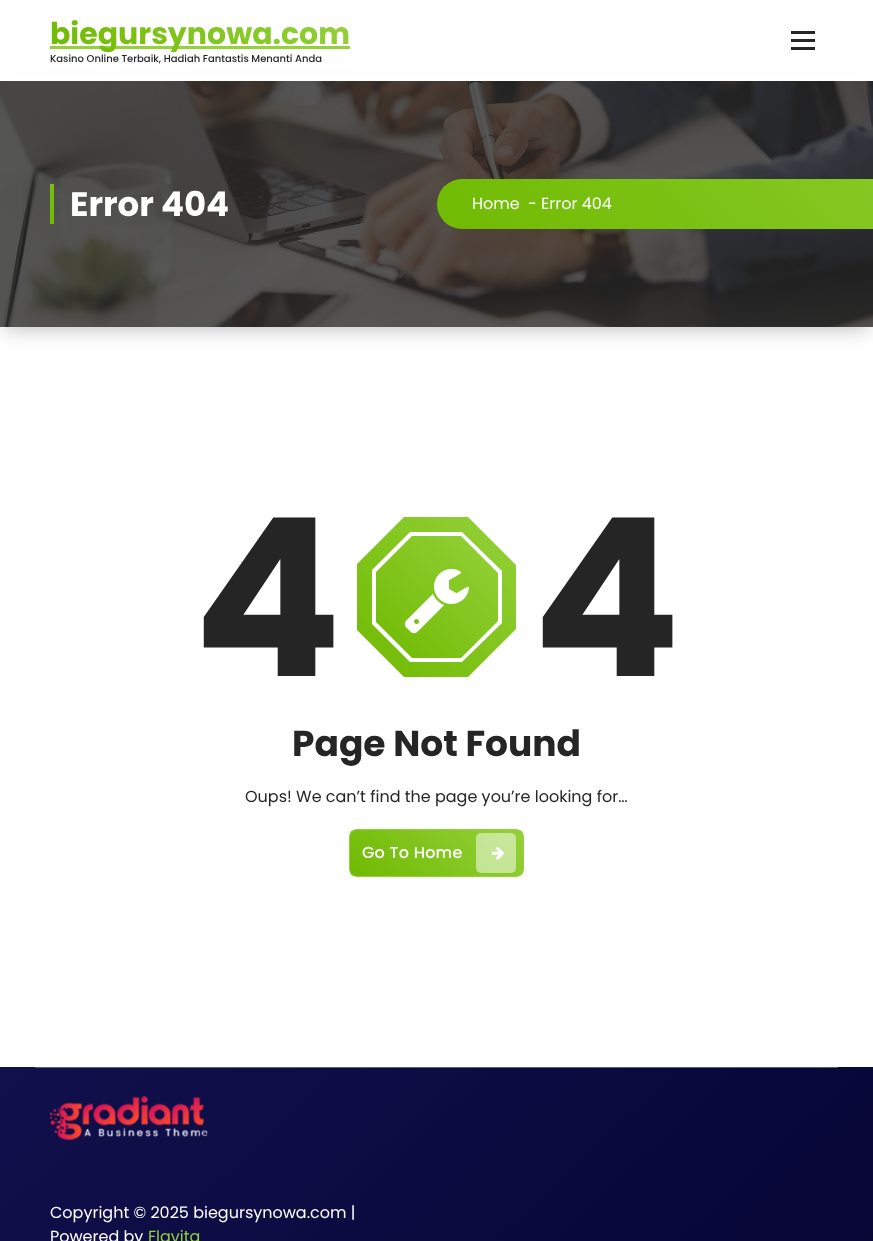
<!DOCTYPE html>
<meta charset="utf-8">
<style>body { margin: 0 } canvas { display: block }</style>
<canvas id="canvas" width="873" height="1241"></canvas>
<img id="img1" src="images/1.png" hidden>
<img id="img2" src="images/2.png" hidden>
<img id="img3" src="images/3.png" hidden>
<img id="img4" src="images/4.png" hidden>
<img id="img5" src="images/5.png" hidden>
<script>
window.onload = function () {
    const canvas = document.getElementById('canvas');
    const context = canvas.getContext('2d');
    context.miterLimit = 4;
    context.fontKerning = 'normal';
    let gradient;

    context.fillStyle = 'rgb(255, 255, 255)';
    context.fillRect(0, 0, 873, 1241);
    context.fillStyle = 'rgba(0, 0, 0, 0.25)';
    context.filter = 'blur(10px)';
    context.beginPath();
    context.rect(4, 91, 865, 238);
    context.fill();
    context.filter = 'none';
    context.fillStyle = 'rgb(255, 255, 255)';
    context.fillRect(0, 74, 873, 7);
    context.fillStyle = 'rgb(148, 209, 58)';
    context.fillRect(50, 46, 300, 3);
    context.fillStyle = 'rgb(37, 37, 37)';
    context.fillRect(791, 31, 24, 3);
    context.fillRect(791, 39, 24, 3);
    context.fillRect(791, 47, 24, 3);
    context.drawImage(document.getElementById('img1'), 0, 81, 873, 246);
    context.drawImage(document.getElementById('img2'), 50, 184, 4, 40);
    gradient = context.createLinearGradient(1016, -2.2, 631, 410);
    gradient.addColorStop(0, 'rgb(148, 209, 58)');
    gradient.addColorStop(1, 'rgb(112, 186, 2)');
    context.fillStyle = gradient;
    context.beginPath();
    context.roundRect(437, 179, 436, 50, [25, 0, 0, 25]);
    context.fill();
    gradient = context.createLinearGradient(514, 514, 360, 680);
    gradient.addColorStop(0, 'rgb(148, 209, 58)');
    gradient.addColorStop(1, 'rgb(112, 186, 2)');
    context.fillStyle = gradient;
    context.beginPath();
    context.moveTo(404, 517);
    context.lineTo(357, 564);
    context.lineTo(357, 630);
    context.lineTo(404, 677);
    context.lineTo(468, 677);
    context.lineTo(516, 629);
    context.lineTo(516, 565);
    context.lineTo(468, 517);
    context.closePath();
    context.fill();
    context.fillStyle = 'rgb(255, 255, 255)';
    context.beginPath();
    context.moveTo(410, 532);
    context.lineTo(372, 570);
    context.lineTo(372, 624);
    context.lineTo(410, 662);
    context.lineTo(462, 662);
    context.lineTo(502, 623);
    context.lineTo(502, 571);
    context.lineTo(462, 532);
    context.closePath();
    context.fill();
    gradient = context.createLinearGradient(496, 534, 378, 660);
    gradient.addColorStop(0, 'rgb(148, 209, 58)');
    gradient.addColorStop(1, 'rgb(112, 186, 2)');
    context.fillStyle = gradient;
    context.beginPath();
    context.moveTo(412, 536);
    context.lineTo(376, 572);
    context.lineTo(376, 622);
    context.lineTo(412, 658);
    context.lineTo(461, 658);
    context.lineTo(498, 621);
    context.lineTo(498, 573);
    context.lineTo(461, 536);
    context.closePath();
    context.fill();
    context.drawImage(document.getElementById('img3'), 404, 569, 65, 65);
    context.save();
    context.beginPath();
    context.roundRect(349, 829, 175, 48, 8);
    context.clip();
    gradient = context.createLinearGradient(488, 798, 385, 908);
    gradient.addColorStop(0, 'rgb(148, 209, 58)');
    gradient.addColorStop(1, 'rgb(112, 186, 2)');
    context.fillStyle = gradient;
    context.fillRect(350, 830, 173, 46);
    context.restore();
    context.beginPath();
    context.roundRect(349.5, 829.5, 174, 47, 7.5);
    context.strokeStyle = 'rgb(148, 209, 58)';
    context.stroke();
    context.fillStyle = 'rgba(255, 255, 255, 0.5)';
    context.beginPath();
    context.roundRect(476, 833, 40, 40, 5);
    context.fill();
    context.drawImage(document.getElementById('img4'), 492, 846, 13, 14);
    gradient = context.createLinearGradient(182, 898, 691, 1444);
    gradient.addColorStop(0, 'rgb(17, 16, 77)');
    gradient.addColorStop(1, 'rgb(6, 5, 52)');
    context.fillStyle = gradient;
    context.fillRect(0, 1067, 873, 174);
    gradient = context.createLinearGradient(182, 898, 691, 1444);
    gradient.addColorStop(0, 'rgb(94, 94, 127)');
    gradient.addColorStop(1, 'rgb(88, 88, 114)');
    context.fillStyle = gradient;
    context.fillRect(35, 1067, 803, 1);
    context.drawImage(document.getElementById('img5'), 50, 1096, 158, 44);
    context.font = 'bold 30px Poppins';
    gradient = context.createLinearGradient(279, -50, 121, 118);
    gradient.addColorStop(0, 'rgb(148, 209, 58)');
    gradient.addColorStop(1, 'rgb(112, 186, 2)');
    context.fillStyle = gradient;
    context.fillText('biegursynowa.com', 50, 44);
    context.font = '500 10px Poppins';
    context.fillStyle = 'rgb(37, 37, 37)';
    context.fillText('Kasino Online Terbaik, Hadiah Fantastis Menanti Anda', 50, 62);
    context.font = 'bold 34px Poppins';
    context.fillStyle = 'rgb(255, 255, 255)';
    context.fillText('Error 404', 70, 216);
    context.font = '16px Poppins';
    context.fillText('Home', 472, 209);
    context.fillText('- Error 404', 528, 209);
    context.font = 'bold 220px Poppins';
    context.fillStyle = 'rgb(37, 37, 37)';
    context.fillText('4', 193, 676);
    context.fillText('4', 532, 676);
    context.font = 'bold 36px Poppins';
    context.fillText('Page Not Found', 292, 756);
    context.font = '16px Poppins';
    context.fillText('Oups! We can’t find the page you’re looking for…', 245, 802);
    context.letterSpacing = '0.25px';
    context.font = '500 16px Poppins';
    context.fillStyle = 'rgb(255, 255, 255)';
    context.fillText('Go To Home', 362, 858);
    context.letterSpacing = '0px';
    context.font = '16px Poppins';
    context.fillText('Copyright © 2025 biegursynowa.com |', 50, 1218);
    context.fillText('Powered by', 50, 1242);
    context.fillStyle = 'rgb(148, 209, 58)';
    context.fillText('Flavita', 148, 1242);
};
</script>
